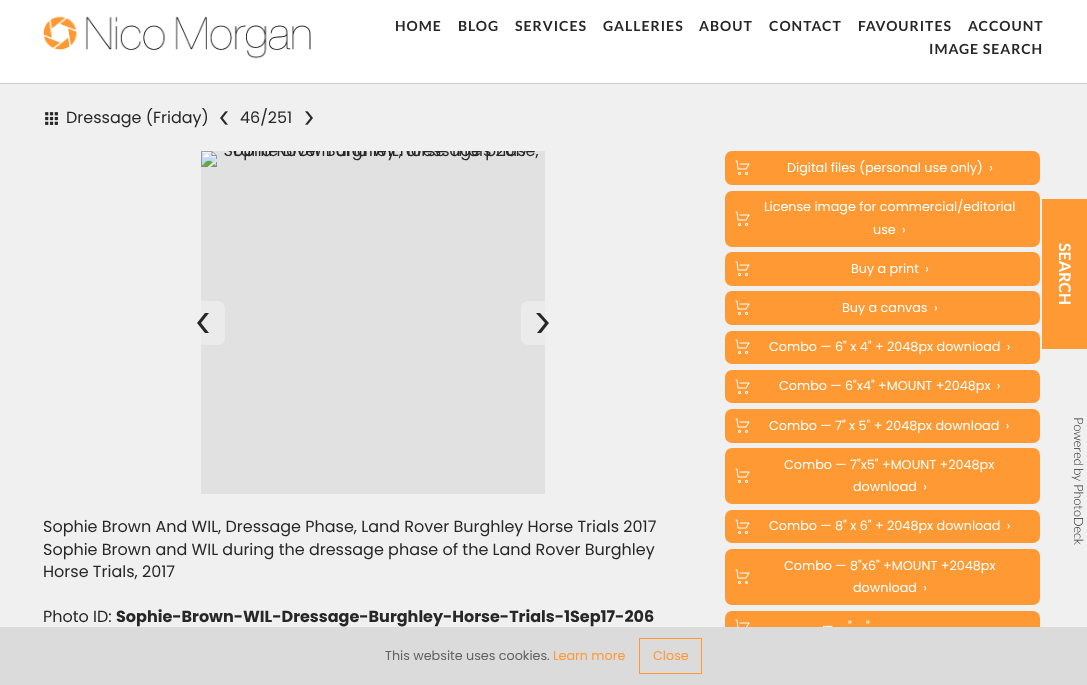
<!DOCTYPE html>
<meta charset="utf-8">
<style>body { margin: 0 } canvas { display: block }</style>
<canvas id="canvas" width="1087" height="685"></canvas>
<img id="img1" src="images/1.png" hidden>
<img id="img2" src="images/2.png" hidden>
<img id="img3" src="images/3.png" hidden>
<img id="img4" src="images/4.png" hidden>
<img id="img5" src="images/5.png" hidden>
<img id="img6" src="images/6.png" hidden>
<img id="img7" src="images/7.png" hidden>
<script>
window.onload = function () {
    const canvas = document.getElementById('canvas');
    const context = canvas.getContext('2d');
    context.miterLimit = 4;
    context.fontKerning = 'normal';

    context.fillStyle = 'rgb(240, 240, 240)';
    context.fillRect(0, 0, 1087, 685);
    context.fillStyle = 'rgb(255, 255, 255)';
    context.fillRect(0, 0, 1087, 83);
    context.fillStyle = 'rgb(203, 203, 203)';
    context.fillRect(0, 83, 1087, 1);
    context.drawImage(document.getElementById('img1'), 43, 16, 268, 43);
    context.fillStyle = 'rgb(255, 153, 51)';
    context.fillRect(1042, 199, 45, 150);
    context.drawImage(document.getElementById('img2'), 45, 112, 13, 13);
    context.drawImage(document.getElementById('img3'), 220, 111, 8, 14);
    context.drawImage(document.getElementById('img4'), 305, 111, 8, 14);
    context.fillStyle = 'rgb(225, 225, 225)';
    context.fillRect(201, 151, 344, 343);
    context.drawImage(document.getElementById('img5'), 201, 151, 338, 16);
    context.fillStyle = 'rgba(240, 240, 240, 0.7)';
    context.beginPath();
    context.roundRect(181, 301, 44, 44, 7);
    context.fill();
    context.fillStyle = 'rgb(39, 39, 39)';
    context.beginPath();
    context.moveTo(197, 323);
    context.lineTo(205, 333);
    context.lineTo(209, 333);
    context.lineTo(201, 323);
    context.lineTo(209, 313);
    context.lineTo(205, 313);
    context.closePath();
    context.fill();
    context.fillStyle = 'rgba(240, 240, 240, 0.7)';
    context.beginPath();
    context.roundRect(521, 301, 44, 44, 7);
    context.fill();
    context.fillStyle = 'rgb(39, 39, 39)';
    context.beginPath();
    context.moveTo(545, 323);
    context.lineTo(537, 333);
    context.lineTo(541, 333);
    context.lineTo(549, 323);
    context.lineTo(540, 313);
    context.lineTo(536, 313);
    context.closePath();
    context.fill();
    context.fillStyle = 'rgb(255, 153, 51)';
    context.beginPath();
    context.roundRect(725, 151, 315, 34, 7);
    context.fill();
    context.drawImage(document.getElementById('img6'), 735, 160, 15, 15);
    context.beginPath();
    context.roundRect(725, 191, 315, 56, 7);
    context.fill();
    context.drawImage(document.getElementById('img6'), 735, 211, 15, 15);
    context.beginPath();
    context.roundRect(725, 252, 315, 34, 7);
    context.fill();
    context.drawImage(document.getElementById('img6'), 735, 261, 15, 15);
    context.beginPath();
    context.roundRect(725, 291, 315, 34, 7);
    context.fill();
    context.drawImage(document.getElementById('img6'), 735, 300, 15, 15);
    context.beginPath();
    context.roundRect(725, 331, 315, 33, 7);
    context.fill();
    context.drawImage(document.getElementById('img6'), 735, 339, 15, 15);
    context.beginPath();
    context.roundRect(725, 370, 315, 33, 7);
    context.fill();
    context.drawImage(document.getElementById('img6'), 735, 379, 15, 15);
    context.beginPath();
    context.roundRect(725, 409, 315, 34, 7);
    context.fill();
    context.drawImage(document.getElementById('img6'), 735, 418, 15, 15);
    context.beginPath();
    context.roundRect(725, 448, 315, 56, 7);
    context.fill();
    context.drawImage(document.getElementById('img6'), 735, 468, 15, 15);
    context.beginPath();
    context.roundRect(725, 510, 315, 33, 7);
    context.fill();
    context.drawImage(document.getElementById('img6'), 735, 519, 15, 15);
    context.beginPath();
    context.roundRect(725, 549, 315, 56, 7);
    context.fill();
    context.drawImage(document.getElementById('img6'), 735, 569, 15, 15);
    context.beginPath();
    context.roundRect(725, 611, 315, 33, 7);
    context.fill();
    context.drawImage(document.getElementById('img7'), 735, 619, 15, 8);
    context.fillStyle = 'rgb(219, 219, 219)';
    context.fillRect(0, 627, 1087, 58);
    context.strokeStyle = 'rgb(255, 153, 51)';
    context.strokeRect(639.5, 638.5, 62, 35);
    context.letterSpacing = '1px';
    context.font = 'bold 14px Lato';
    context.fillStyle = 'rgb(39, 39, 39)';
    context.fillText('HOME', 395, 31);
    context.fillText('BLOG', 458, 31);
    context.fillText('SERVICES', 515, 31);
    context.fillText('GALLERIES', 603, 31);
    context.fillText('ABOUT', 699, 31);
    context.fillText('CONTACT', 769, 31);
    context.fillText('FAVOURITES', 858, 31);
    context.fillText('ACCOUNT', 968, 31);
    context.fillText('IMAGE SEARCH', 929, 54);
    context.letterSpacing = '0px';
    context.font = 'bold 16px Lato';
    context.fillStyle = 'rgb(255, 255, 255)';
    context.save();
    context.translate(1059, 243);
    context.rotate(90 * Math.PI / 180);
    context.fillText('SEARCH', 0, 0);
    context.restore();
    context.font = '300 12.75px Lato';
    context.fillStyle = 'rgb(39, 39, 39)';
    context.save();
    context.translate(1074, 417);
    context.rotate(90 * Math.PI / 180);
    context.fillText('Powered by', 0, 0);
    context.restore();
    context.save();
    context.translate(1074, 484);
    context.rotate(90 * Math.PI / 180);
    context.fillText('PhotoDeck', 0, 0);
    context.restore();
    context.font = '16px Poppins';
    context.fillText('Dressage (Friday)', 66, 123);
    context.fillText('46/251', 240, 123);
    context.fillText('Sophie Brown And WIL, Dressage Phase, Land Rover Burghley Horse Trials 2017', 43, 532);
    context.fillText('Sophie Brown and WIL during the dressage phase of the Land Rover Burghley', 43, 555);
    context.fillText('Horse Trials, 2017', 43, 577);
    context.fillText('Photo ID:', 43, 622);
    context.font = 'bold 16px Poppins';
    context.fillText('Sophie-Brown-WIL-Dressage-Burghley-Horse-Trials-1Sep17-206', 116, 622);
    context.font = '12.75px Poppins';
    context.fillStyle = 'rgb(255, 255, 255)';
    context.fillText('Digital files (personal use only) ›', 787, 172);
    context.fillText('License image for commercial/editorial', 764, 211);
    context.fillText('use ›', 873, 234);
    context.fillText('Buy a print ›', 851, 273);
    context.fillText('Buy a canvas ›', 842, 312);
    context.fillText('Combo — 6" x 4" + 2048px download ›', 769, 351);
    context.fillText('Combo — 6"x4" +MOUNT +2048px ›', 779, 390);
    context.fillText('Combo — 7" x 5" + 2048px download ›', 769, 430);
    context.fillText('Combo — 7"x5" +MOUNT +2048px', 784, 469);
    context.fillText('download ›', 853, 491);
    context.fillText('Combo — 8" x 6" + 2048px download ›', 769, 530);
    context.fillText('Combo — 8"x6" +MOUNT +2048px', 784, 570);
    context.fillText('download ›', 853, 592);
    context.fillText('"', 848, 631);
    context.fillText('"', 866, 631);
    context.fillText('—', 822, 631);
    context.fillStyle = 'rgb(98, 98, 98)';
    context.fillText('This website uses cookies.', 385, 660);
    context.fillStyle = 'rgb(255, 153, 51)';
    context.fillText('Learn more', 553, 660);
    context.fillText('Close', 653, 660);
};
</script>
